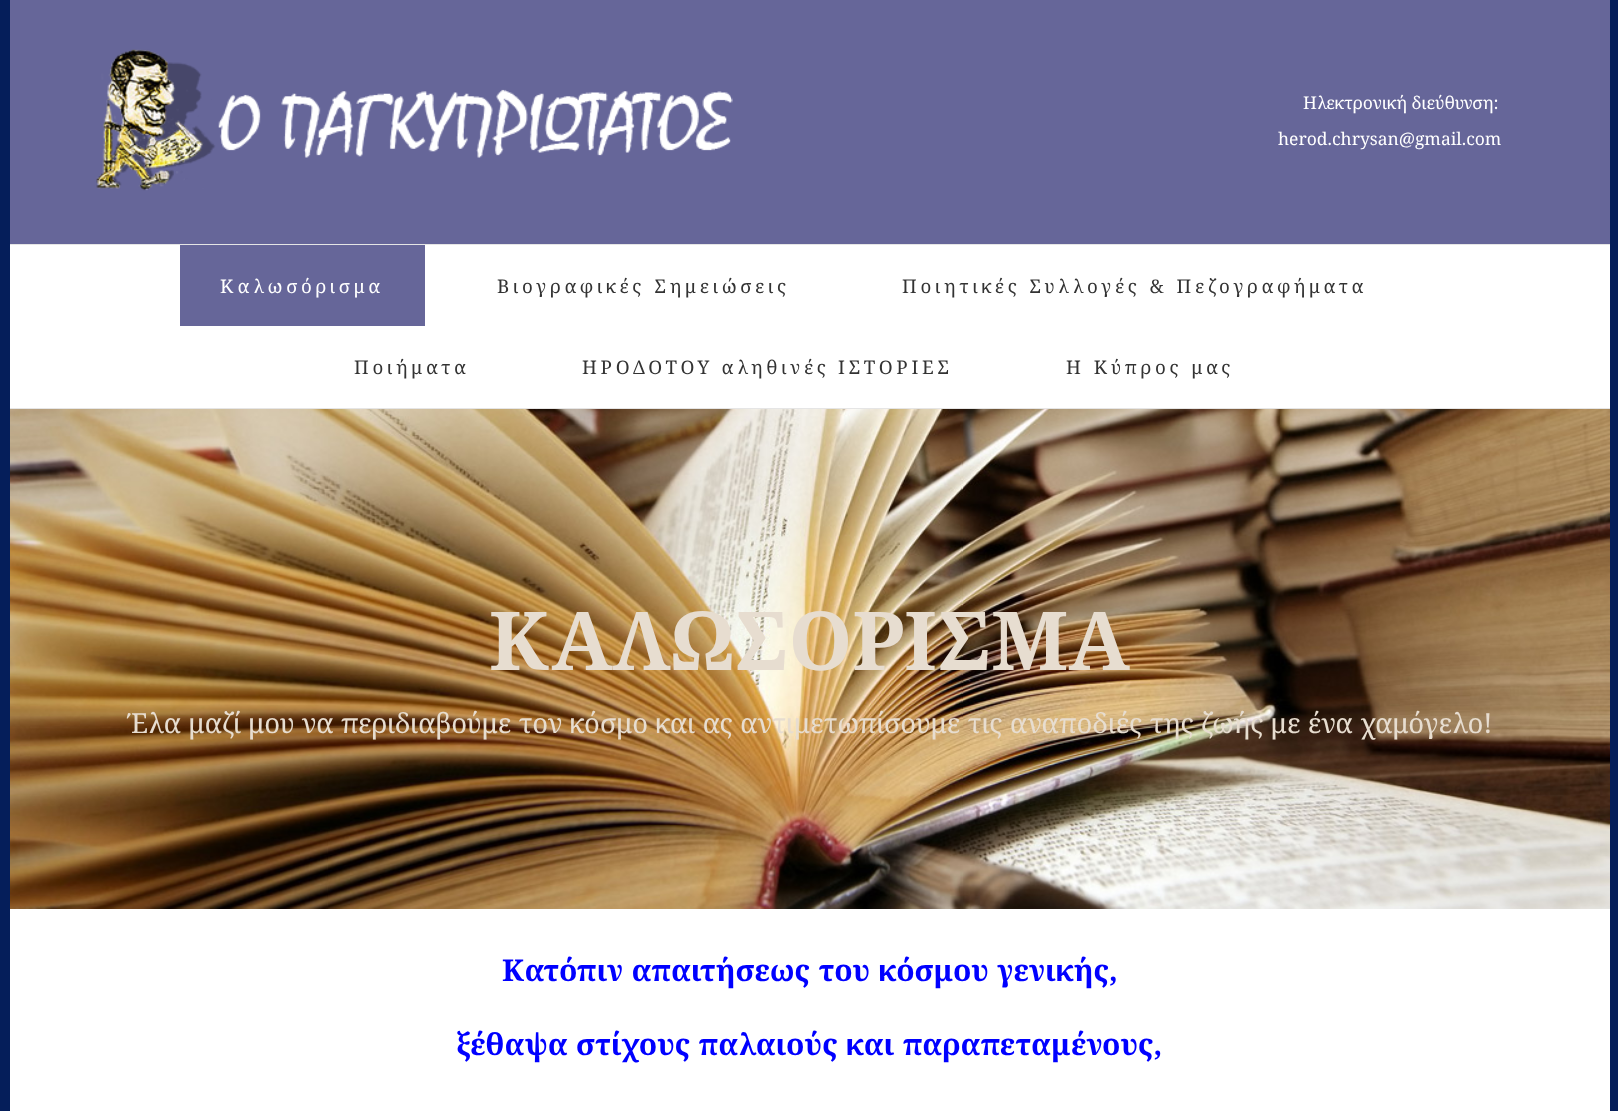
<!DOCTYPE html>
<meta charset="utf-8">
<style>body { margin: 0 } canvas { display: block }</style>
<canvas id="canvas" width="1618" height="1111"></canvas>
<img id="img1" src="images/1.png" hidden>
<img id="img2" src="images/2.png" hidden>
<script>
window.onload = function () {
    const canvas = document.getElementById('canvas');
    const context = canvas.getContext('2d');
    context.miterLimit = 4;
    context.fontKerning = 'normal';

    context.fillStyle = 'rgb(5, 30, 90)';
    context.fillRect(0, 0, 1618, 1111);
    context.fillStyle = 'rgb(102, 102, 153)';
    context.fillRect(10, 0, 1600, 244);
    context.fillStyle = 'rgb(229, 229, 229)';
    context.fillRect(10, 244, 1600, 1);
    context.drawImage(document.getElementById('img1'), 96, 49, 637, 142);
    context.fillStyle = 'rgb(255, 255, 255)';
    context.fillRect(10, 245, 1600, 163);
    context.fillStyle = 'rgb(229, 229, 229)';
    context.fillRect(10, 408, 1600, 1);
    context.fillStyle = 'rgb(102, 102, 153)';
    context.fillRect(180, 245, 245, 81);
    context.drawImage(document.getElementById('img2'), 10, 409, 1600, 500);
    context.fillStyle = 'rgb(255, 255, 255)';
    context.fillRect(10, 909, 1600, 202);
    context.font = '17.5px Noto Serif';
    context.fillText('Ηλεκτρονική διεύθυνση:', 1303, 109);
    context.fillText('herod.chrysan@gmail.com', 1278, 145);
    context.letterSpacing = '3.75px';
    context.font = '18.75px Noto Serif';
    context.fillText('Καλωσόρισμα', 220, 293);
    context.wordSpacing = '1px';
    context.fillStyle = 'rgb(51, 51, 51)';
    context.fillText('Βιογραφικές Σημειώσεις', 497, 293);
    context.wordSpacing = '0.5px';
    context.fillText('Ποιητικές Συλλογές & Πεζογραφήματα', 902, 293);
    context.wordSpacing = '0px';
    context.fillText('Ποιήματα', 354, 374);
    context.fillText('ΗΡΟΔΟΤΟΥ αληθινές ΙΣΤΟΡΙΕΣ', 582, 374);
    context.wordSpacing = '0.5px';
    context.fillText('Η Κύπρος μας', 1066, 374);
    context.letterSpacing = '0px';
    context.wordSpacing = '0px';
    context.font = 'bold 81.25px Noto Serif';
    context.fillStyle = 'rgb(231, 221, 208)';
    context.fillText('ΚΑΛΩΣΟΡΙΣΜΑ', 489, 670);
    context.wordSpacing = '0.2px';
    context.font = '27.5px Noto Serif';
    context.fillText('Έλα μαζί μου να περιδιαβούμε τον κόσμο και ας αντιμετωπίσουμε τις αναποδιές της ζωής με ένα χαμόγελο!', 127, 733);
    context.wordSpacing = '0.5px';
    context.font = 'bold 30px Noto Serif';
    context.fillStyle = 'rgb(0, 0, 255)';
    context.fillText('Κατόπιν απαιτήσεως του κόσμου γενικής,', 502, 981);
    context.fillText('ξέθαψα στίχους παλαιούς και παραπεταμένους,', 456, 1055);
};
</script>
